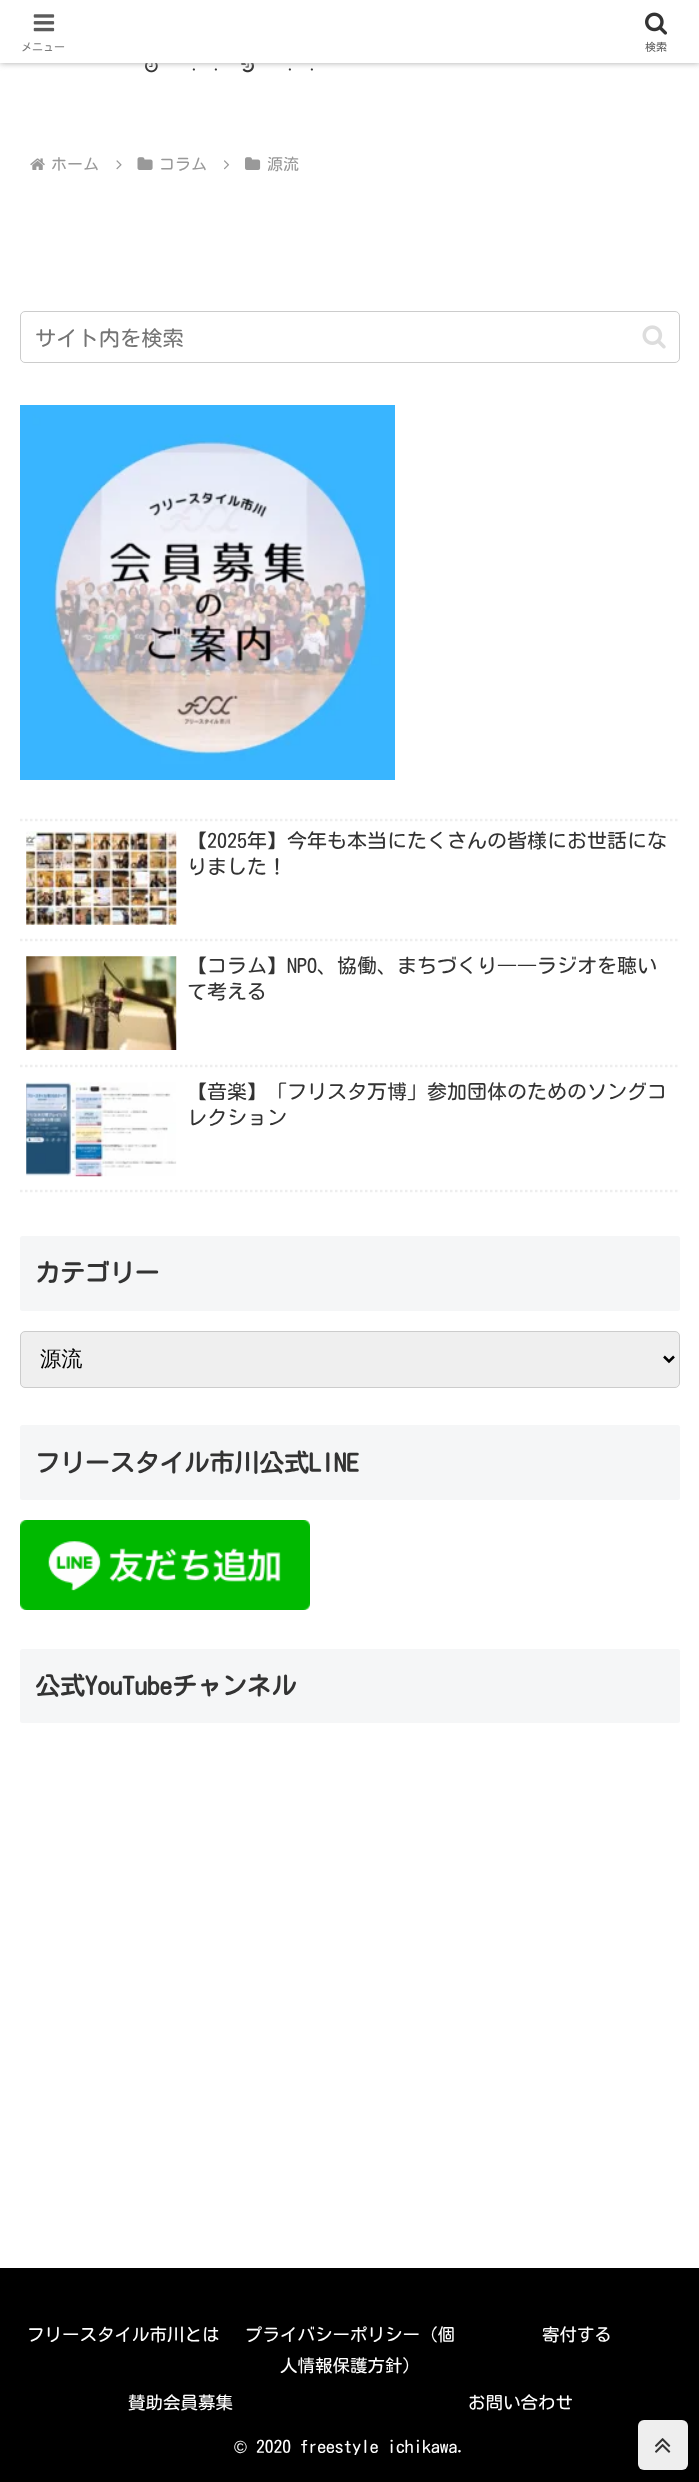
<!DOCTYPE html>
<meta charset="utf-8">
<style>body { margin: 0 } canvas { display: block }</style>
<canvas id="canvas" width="699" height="2482"></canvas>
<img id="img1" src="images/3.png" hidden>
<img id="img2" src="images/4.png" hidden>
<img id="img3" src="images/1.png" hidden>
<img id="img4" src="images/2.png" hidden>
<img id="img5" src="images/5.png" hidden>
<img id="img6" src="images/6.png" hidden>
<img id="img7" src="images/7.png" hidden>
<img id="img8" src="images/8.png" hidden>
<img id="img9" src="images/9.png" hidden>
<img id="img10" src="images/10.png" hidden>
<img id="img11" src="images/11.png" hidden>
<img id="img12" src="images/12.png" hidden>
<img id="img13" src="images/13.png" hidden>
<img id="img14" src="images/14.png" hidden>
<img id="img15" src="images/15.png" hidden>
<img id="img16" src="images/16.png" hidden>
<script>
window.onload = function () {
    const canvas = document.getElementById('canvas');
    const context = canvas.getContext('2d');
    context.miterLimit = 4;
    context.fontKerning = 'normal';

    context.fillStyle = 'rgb(255, 255, 255)';
    context.fillRect(0, 0, 699, 2482);
    context.drawImage(document.getElementById('img1'), 145, 63, 13, 10);
    context.drawImage(document.getElementById('img2'), 241, 63, 13, 10);
    context.fillStyle = 'rgb(169, 169, 169)';
    context.filter = 'blur(3px)';
    context.beginPath();
    context.rect(0, 0, 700, 63);
    context.fill();
    context.filter = 'none';
    context.fillStyle = 'rgb(255, 255, 255)';
    context.fillRect(0, 0, 699, 63);
    context.drawImage(document.getElementById('img3'), 33, 14, 22, 18);
    context.drawImage(document.getElementById('img4'), 645, 12, 22, 23);
    context.drawImage(document.getElementById('img5'), 30, 158, 15, 12);
    context.drawImage(document.getElementById('img6'), 116, 160, 6, 10);
    context.drawImage(document.getElementById('img7'), 137, 157, 16, 13);
    context.drawImage(document.getElementById('img8'), 224, 160, 6, 10);
    context.drawImage(document.getElementById('img9'), 245, 157, 16, 13);
    context.beginPath();
    context.roundRect(20.5, 311.5, 659, 51, 4.5);
    context.strokeStyle = 'rgb(204, 204, 204)';
    context.stroke();
    context.drawImage(document.getElementById('img10'), 642, 325, 24, 24);
    context.drawImage(document.getElementById('img11'), 20, 405, 375, 375);
    context.beginPath();
    context.moveTo(20, 820);
    context.lineTo(680, 820);
    context.strokeStyle = 'rgb(238, 238, 238)';
    context.lineWidth = 2.5;
    context.setLineDash([2.5, 2.5]);
    context.stroke();
    context.beginPath();
    context.moveTo(20, 940);
    context.lineTo(680, 940);
    context.stroke();
    context.drawImage(document.getElementById('img12'), 26, 831, 151, 94);
    context.beginPath();
    context.moveTo(20, 1066);
    context.lineTo(680, 1066);
    context.stroke();
    context.drawImage(document.getElementById('img13'), 26, 956, 151, 94);
    context.beginPath();
    context.moveTo(20, 1191);
    context.lineTo(680, 1191);
    context.stroke();
    context.drawImage(document.getElementById('img14'), 26, 1082, 151, 95);
    context.fillStyle = 'rgb(245, 246, 247)';
    context.beginPath();
    context.roundRect(20, 1236, 660, 75, 2.5);
    context.fill();
    context.fillStyle = 'rgb(239, 239, 239)';
    context.beginPath();
    context.roundRect(20.5, 1331.5, 659, 56, 4.5);
    context.fill();
    context.strokeStyle = 'rgb(204, 204, 204)';
    context.lineWidth = 1;
    context.setLineDash([]);
    context.stroke();
    context.beginPath();
    context.moveTo(664, 1356.5);
    context.lineTo(669, 1361.5);
    context.lineTo(674, 1356.5);
    context.strokeStyle = 'rgb(0, 0, 0)';
    context.lineWidth = 2.5;
    context.stroke();
    context.fillStyle = 'rgb(245, 246, 247)';
    context.beginPath();
    context.roundRect(20, 1425, 660, 75, 2.5);
    context.fill();
    context.drawImage(document.getElementById('img15'), 20, 1520, 290, 90);
    context.beginPath();
    context.roundRect(20, 1649, 660, 74, 2.5);
    context.fill();
    context.fillStyle = 'rgb(0, 0, 0)';
    context.fillRect(0, 2268, 699, 214);
    context.fillStyle = 'rgb(238, 238, 238)';
    context.beginPath();
    context.roundRect(638, 2420, 50, 50, 6);
    context.fill();
    context.drawImage(document.getElementById('img16'), 655, 2438, 16, 15);
    context.font = '11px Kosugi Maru';
    context.fillStyle = 'rgb(124, 124, 124)';
    context.fillText('メニュー', 21, 51);
    context.fillStyle = 'rgb(92, 92, 92)';
    context.fillText('検索', 645, 51);
    context.font = '15px Kosugi Maru';
    context.fillStyle = 'rgb(51, 51, 51)';
    context.fillText('.', 192, 71);
    context.fillText('.', 214, 71);
    context.fillText('.', 288, 71);
    context.fillText('.', 310, 71);
    context.font = '16px Kosugi Maru';
    context.fillStyle = 'rgb(153, 153, 153)';
    context.fillText('ホーム', 51, 170);
    context.fillText('コラム', 159, 170);
    context.fillText('源流', 267, 170);
    context.font = '21.25px Kosugi Maru';
    context.fillStyle = 'rgb(117, 117, 117)';
    context.fillText('サイト内を検索', 35, 346);
    context.font = '20px Kosugi Maru';
    context.fillStyle = 'rgb(51, 51, 51)';
    context.fillText('【2025年】今年も本当にたくさんの皆様にお世話にな', 187, 848);
    context.fillText('りました！', 187, 874);
    context.fillText('【コラム】NPO、協働、まちづくり――ラジオを聴い', 187, 973);
    context.fillText('て考える', 187, 999);
    context.fillText('【音楽】「フリスタ万博」参加団体のためのソングコ', 187, 1099);
    context.fillText('レクション', 187, 1125);
    context.font = 'bold 24.9px Kosugi Maru';
    context.fillText('カテゴリー', 35, 1282);
    context.font = '500 21.25px WenQuanYi Zen Hei';
    context.fillStyle = 'rgb(0, 0, 0)';
    context.fillText('源流', 40, 1366);
    context.font = 'bold 24.9px Kosugi Maru';
    context.fillStyle = 'rgb(51, 51, 51)';
    context.fillText('フリースタイル市川公式LINE', 35, 1472);
    context.fillText('公式YouTubeチャンネル', 35, 1695);
    context.font = '17.5px Kosugi Maru';
    context.fillStyle = 'rgb(255, 255, 255)';
    context.fillText('フリースタイル市川とは', 27, 2341);
    context.fillText('プライバシーポリシー（個', 245, 2341);
    context.fillText('人情報保護方針）', 280, 2372);
    context.fillText('寄付する', 542, 2341);
    context.fillText('賛助会員募集', 128, 2409);
    context.fillText('お問い合わせ', 468, 2409);
    context.font = '17.5px Liberation Sans';
    context.fillText('©', 234, 2453);
    context.font = '17.5px Kosugi Maru';
    context.fillText('2020 freestyle ichikawa.', 256, 2453);
};
</script>
